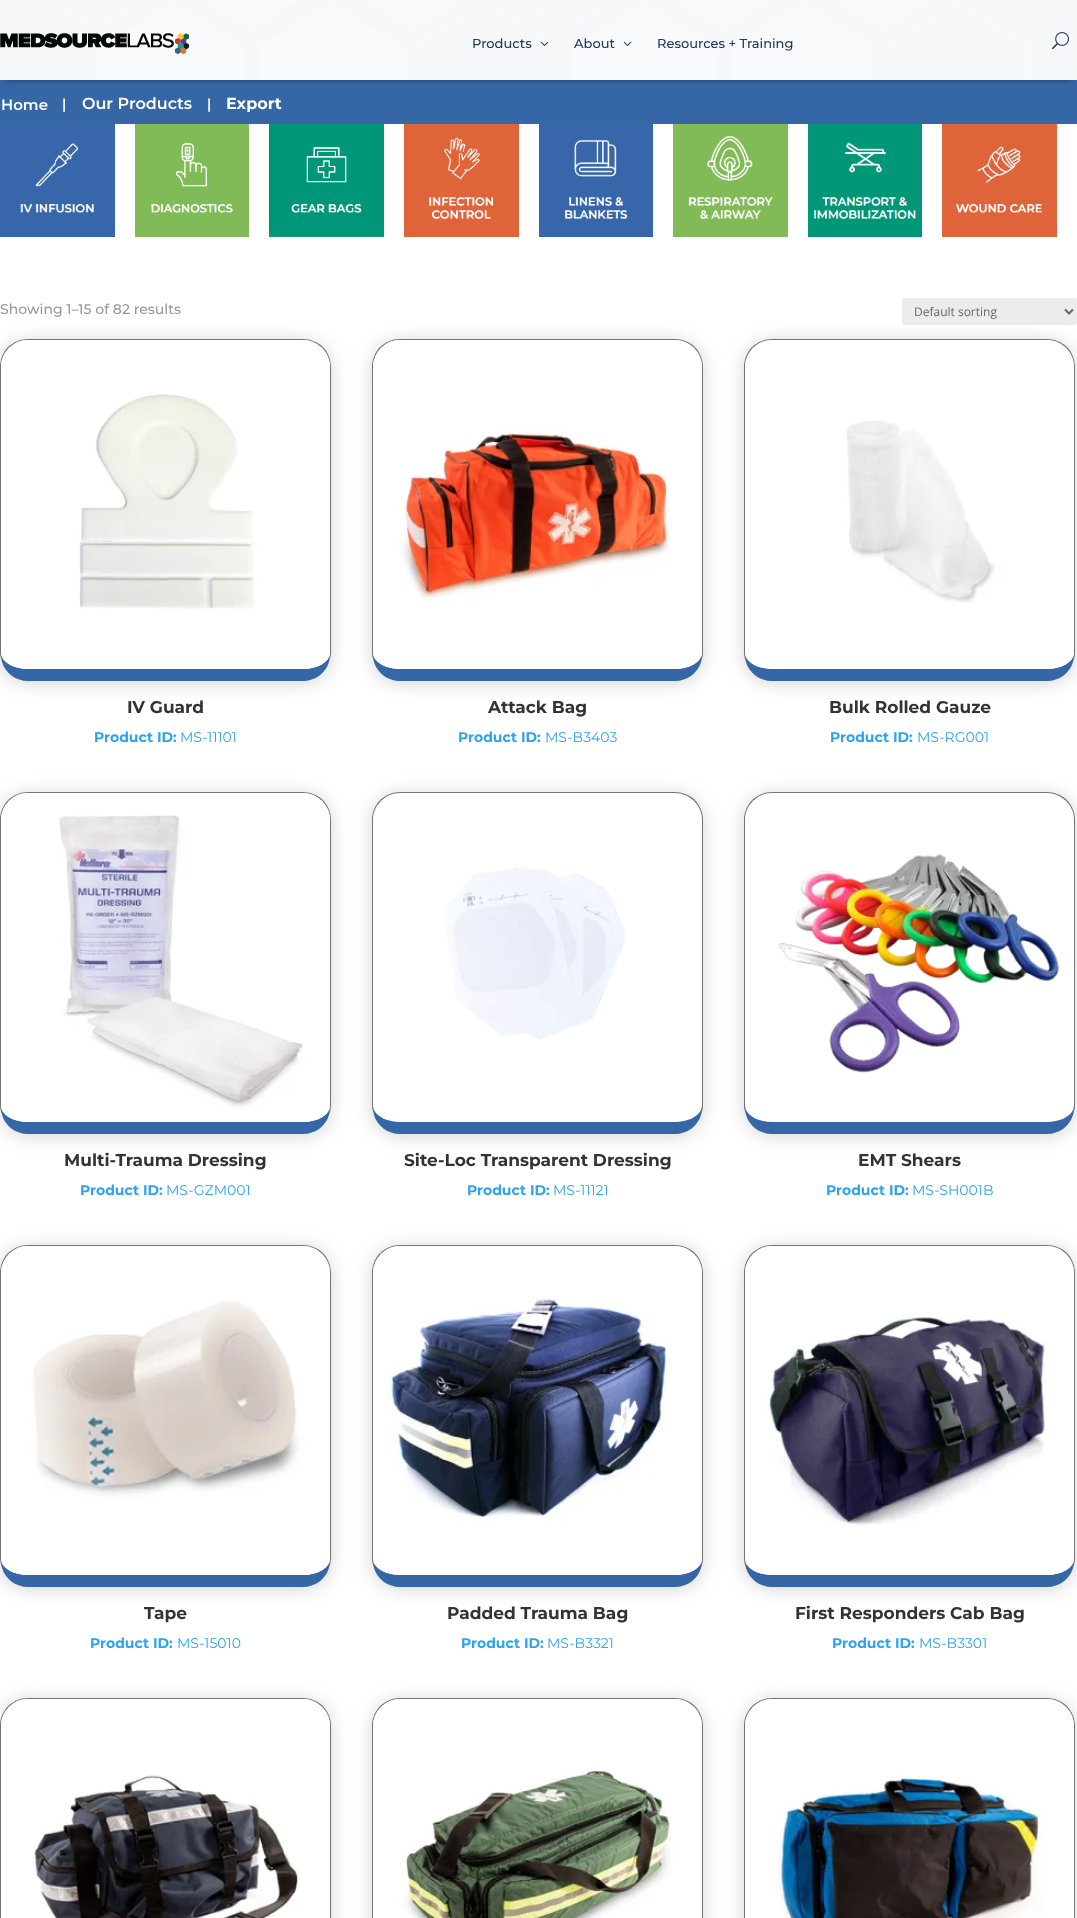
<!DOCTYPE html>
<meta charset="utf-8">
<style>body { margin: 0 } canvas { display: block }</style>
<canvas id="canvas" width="1077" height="1918"></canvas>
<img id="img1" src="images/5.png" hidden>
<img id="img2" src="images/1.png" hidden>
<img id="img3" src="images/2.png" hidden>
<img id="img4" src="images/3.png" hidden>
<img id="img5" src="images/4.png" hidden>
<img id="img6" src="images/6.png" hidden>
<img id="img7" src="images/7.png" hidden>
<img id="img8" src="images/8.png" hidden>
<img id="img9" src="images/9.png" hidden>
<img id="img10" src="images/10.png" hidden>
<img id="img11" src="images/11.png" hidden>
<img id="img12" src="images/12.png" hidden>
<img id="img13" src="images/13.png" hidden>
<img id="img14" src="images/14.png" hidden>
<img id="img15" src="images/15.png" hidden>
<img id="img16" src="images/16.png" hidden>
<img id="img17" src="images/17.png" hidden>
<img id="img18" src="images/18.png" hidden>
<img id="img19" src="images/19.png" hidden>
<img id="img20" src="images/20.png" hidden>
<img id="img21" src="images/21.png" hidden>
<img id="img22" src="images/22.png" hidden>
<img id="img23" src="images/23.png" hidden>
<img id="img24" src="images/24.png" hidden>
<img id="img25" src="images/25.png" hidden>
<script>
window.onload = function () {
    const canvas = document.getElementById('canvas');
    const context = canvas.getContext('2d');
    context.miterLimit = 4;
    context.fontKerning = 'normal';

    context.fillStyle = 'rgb(255, 255, 255)';
    context.fillRect(0, 0, 1077, 1918);
    context.fillStyle = 'rgb(53, 102, 166)';
    context.fillRect(0, 80, 1077, 44);
    context.fillStyle = 'rgb(0, 51, 94)';
    context.fillRect(0, 0, 1077, 80);
    context.drawImage(document.getElementById('img1'), 48, 0, 981, 80);
    context.save();
    context.beginPath();
    context.rect(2, 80, 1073, 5);
    context.clip();
    context.fillStyle = 'rgba(0, 0, 0, 0.3)';
    context.filter = 'blur(3px)';
    context.beginPath();
    context.rect(6, 13, 1065, 68);
    context.fill();
    context.filter = 'none';
    context.restore();
    context.fillStyle = 'rgba(255, 255, 255, 0.97)';
    context.fillRect(0, 0, 1077, 80);
    context.drawImage(document.getElementById('img2'), 0, 33, 189, 21);
    context.drawImage(document.getElementById('img3'), 540, 41, 9, 5);
    context.drawImage(document.getElementById('img4'), 623, 41, 9, 5);
    context.drawImage(document.getElementById('img5'), 1052, 32, 17, 18);
    context.drawImage(document.getElementById('img6'), 0, 124, 115, 113);
    context.drawImage(document.getElementById('img7'), 135, 124, 114, 113);
    context.drawImage(document.getElementById('img8'), 269, 124, 115, 113);
    context.drawImage(document.getElementById('img9'), 404, 124, 115, 113);
    context.drawImage(document.getElementById('img10'), 539, 124, 114, 113);
    context.drawImage(document.getElementById('img11'), 673, 124, 115, 113);
    context.drawImage(document.getElementById('img12'), 808, 124, 114, 113);
    context.drawImage(document.getElementById('img13'), 942, 124, 115, 113);
    context.fillStyle = 'rgb(236, 236, 236)';
    context.beginPath();
    context.roundRect(902, 298, 175, 27, 3);
    context.fill();
    context.beginPath();
    context.moveTo(1065, 309.5);
    context.lineTo(1069, 313.5);
    context.lineTo(1073, 309.5);
    context.strokeStyle = 'rgb(102, 102, 102)';
    context.lineWidth = 2;
    context.stroke();
    context.save();
    context.beginPath();
    context.moveTo(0, 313);
    context.lineTo(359, 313);
    context.lineTo(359, 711);
    context.lineTo(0, 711);
    context.closePath();
    context.moveTo(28, 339);
    context.lineTo(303, 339);
    context.bezierCurveTo(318.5, 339, 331, 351.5, 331, 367);
    context.lineTo(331, 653);
    context.bezierCurveTo(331, 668.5, 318.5, 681, 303, 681);
    context.lineTo(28, 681);
    context.bezierCurveTo(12.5, 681, 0, 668.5, 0, 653);
    context.lineTo(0, 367);
    context.bezierCurveTo(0, 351.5, 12.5, 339, 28, 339);
    context.closePath();
    context.clip('evenodd');
    context.fillStyle = 'rgba(116, 116, 116, 0.31)';
    context.filter = 'blur(9px)';
    context.beginPath();
    context.roundRect(0, 341, 331, 342, 28);
    context.fill();
    context.filter = 'none';
    context.restore();
    context.fillStyle = 'rgb(116, 116, 116)';
    context.beginPath();
    context.moveTo(28, 339);
    context.bezierCurveTo(20, 339, 14, 342, 8, 347);
    context.lineTo(9, 348);
    context.bezierCurveTo(14, 343, 20, 340, 28, 340);
    context.lineTo(303, 340);
    context.bezierCurveTo(310, 340, 317, 343, 322, 348);
    context.lineTo(323, 347);
    context.bezierCurveTo(318, 342, 310, 339, 303, 339);
    context.closePath();
    context.fill();
    context.beginPath();
    context.moveTo(331, 653);
    context.lineTo(331, 367);
    context.bezierCurveTo(331, 360, 328, 352, 323, 347);
    context.lineTo(322, 348);
    context.bezierCurveTo(327, 353, 330, 360, 330, 367);
    context.lineTo(330, 653);
    context.lineTo(329, 657);
    context.lineTo(329, 662);
    context.bezierCurveTo(330, 659, 331, 656, 331, 653);
    context.closePath();
    context.fill();
    context.fillStyle = 'rgb(53, 102, 166)';
    context.beginPath();
    context.moveTo(28, 681);
    context.lineTo(303, 681);
    context.bezierCurveTo(315, 681, 326, 673, 329, 662);
    context.lineTo(329, 657);
    context.bezierCurveTo(326, 664, 315, 669, 303, 669);
    context.lineTo(28, 669);
    context.bezierCurveTo(16, 669, 5, 664, 2, 657);
    context.lineTo(2, 662);
    context.bezierCurveTo(5, 673, 16, 681, 28, 681);
    context.closePath();
    context.fill();
    context.fillStyle = 'rgb(116, 116, 116)';
    context.beginPath();
    context.moveTo(0, 367);
    context.lineTo(0, 653);
    context.bezierCurveTo(0, 656, 1, 659, 2, 662);
    context.lineTo(2, 657);
    context.lineTo(1, 653);
    context.lineTo(1, 367);
    context.bezierCurveTo(1, 360, 4, 353, 9, 348);
    context.lineTo(8, 347);
    context.bezierCurveTo(3, 352, 0, 360, 0, 367);
    context.closePath();
    context.fill();
    context.drawImage(document.getElementById('img14'), 1, 340, 329, 329);
    context.fillStyle = 'rgba(116, 116, 116, 0.31)';
    context.filter = 'blur(9px)';
    context.beginPath();
    context.roundRect(372, 341, 331, 342, 28);
    context.fill();
    context.filter = 'none';
    context.fillStyle = 'rgb(116, 116, 116)';
    context.beginPath();
    context.moveTo(400, 339);
    context.bezierCurveTo(392, 339, 386, 342, 380, 347);
    context.lineTo(381, 348);
    context.bezierCurveTo(386, 343, 392, 340, 400, 340);
    context.lineTo(675, 340);
    context.bezierCurveTo(682, 340, 689, 343, 694, 348);
    context.lineTo(695, 347);
    context.bezierCurveTo(690, 342, 682, 339, 675, 339);
    context.closePath();
    context.fill();
    context.beginPath();
    context.moveTo(703, 653);
    context.lineTo(703, 367);
    context.bezierCurveTo(703, 360, 700, 352, 695, 347);
    context.lineTo(694, 348);
    context.bezierCurveTo(699, 353, 702, 360, 702, 367);
    context.lineTo(702, 653);
    context.lineTo(701, 657);
    context.lineTo(701, 662);
    context.bezierCurveTo(702, 659, 703, 656, 703, 653);
    context.closePath();
    context.fill();
    context.fillStyle = 'rgb(53, 102, 166)';
    context.beginPath();
    context.moveTo(400, 681);
    context.lineTo(675, 681);
    context.bezierCurveTo(687, 681, 698, 673, 701, 662);
    context.lineTo(701, 657);
    context.bezierCurveTo(698, 664, 687, 669, 675, 669);
    context.lineTo(400, 669);
    context.bezierCurveTo(388, 669, 377, 664, 374, 657);
    context.lineTo(374, 662);
    context.bezierCurveTo(377, 673, 388, 681, 400, 681);
    context.closePath();
    context.fill();
    context.fillStyle = 'rgb(116, 116, 116)';
    context.beginPath();
    context.moveTo(372, 367);
    context.lineTo(372, 653);
    context.bezierCurveTo(372, 656, 373, 659, 374, 662);
    context.lineTo(374, 657);
    context.lineTo(373, 653);
    context.lineTo(373, 367);
    context.bezierCurveTo(373, 360, 376, 353, 381, 348);
    context.lineTo(380, 347);
    context.bezierCurveTo(375, 352, 372, 360, 372, 367);
    context.closePath();
    context.fill();
    context.drawImage(document.getElementById('img15'), 373, 340, 329, 329);
    context.fillStyle = 'rgba(116, 116, 116, 0.31)';
    context.filter = 'blur(9px)';
    context.beginPath();
    context.roundRect(744, 341, 331, 342, 28);
    context.fill();
    context.filter = 'none';
    context.fillStyle = 'rgb(116, 116, 116)';
    context.beginPath();
    context.moveTo(772, 339);
    context.bezierCurveTo(764, 339, 758, 342, 752, 347);
    context.lineTo(753, 348);
    context.bezierCurveTo(758, 343, 764, 340, 772, 340);
    context.lineTo(1047, 340);
    context.bezierCurveTo(1054, 340, 1061, 343, 1066, 348);
    context.lineTo(1067, 347);
    context.bezierCurveTo(1062, 342, 1054, 339, 1047, 339);
    context.closePath();
    context.fill();
    context.beginPath();
    context.moveTo(1075, 653);
    context.lineTo(1075, 367);
    context.bezierCurveTo(1075, 360, 1072, 352, 1067, 347);
    context.lineTo(1066, 348);
    context.bezierCurveTo(1071, 353, 1074, 360, 1074, 367);
    context.lineTo(1074, 653);
    context.lineTo(1073, 657);
    context.lineTo(1073, 662);
    context.bezierCurveTo(1074, 659, 1075, 656, 1075, 653);
    context.closePath();
    context.fill();
    context.fillStyle = 'rgb(53, 102, 166)';
    context.beginPath();
    context.moveTo(772, 681);
    context.lineTo(1047, 681);
    context.bezierCurveTo(1059, 681, 1070, 673, 1073, 662);
    context.lineTo(1073, 657);
    context.bezierCurveTo(1070, 664, 1059, 669, 1047, 669);
    context.lineTo(772, 669);
    context.bezierCurveTo(760, 669, 749, 664, 746, 657);
    context.lineTo(746, 662);
    context.bezierCurveTo(749, 673, 760, 681, 772, 681);
    context.closePath();
    context.fill();
    context.fillStyle = 'rgb(116, 116, 116)';
    context.beginPath();
    context.moveTo(744, 367);
    context.lineTo(744, 653);
    context.bezierCurveTo(744, 656, 745, 659, 746, 662);
    context.lineTo(746, 657);
    context.lineTo(745, 653);
    context.lineTo(745, 367);
    context.bezierCurveTo(745, 360, 748, 353, 753, 348);
    context.lineTo(752, 347);
    context.bezierCurveTo(747, 352, 744, 360, 744, 367);
    context.closePath();
    context.fill();
    context.drawImage(document.getElementById('img16'), 745, 340, 329, 329);
    context.save();
    context.beginPath();
    context.moveTo(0, 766);
    context.lineTo(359, 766);
    context.lineTo(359, 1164);
    context.lineTo(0, 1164);
    context.closePath();
    context.moveTo(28, 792);
    context.lineTo(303, 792);
    context.bezierCurveTo(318.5, 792, 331, 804.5, 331, 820);
    context.lineTo(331, 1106);
    context.bezierCurveTo(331, 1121.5, 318.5, 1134, 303, 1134);
    context.lineTo(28, 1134);
    context.bezierCurveTo(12.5, 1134, 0, 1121.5, 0, 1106);
    context.lineTo(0, 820);
    context.bezierCurveTo(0, 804.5, 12.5, 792, 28, 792);
    context.closePath();
    context.clip('evenodd');
    context.fillStyle = 'rgba(116, 116, 116, 0.31)';
    context.filter = 'blur(9px)';
    context.beginPath();
    context.roundRect(0, 794, 331, 342, 28);
    context.fill();
    context.filter = 'none';
    context.restore();
    context.beginPath();
    context.moveTo(28, 792);
    context.bezierCurveTo(20, 792, 14, 795, 8, 800);
    context.lineTo(9, 801);
    context.bezierCurveTo(14, 796, 20, 793, 28, 793);
    context.lineTo(303, 793);
    context.bezierCurveTo(310, 793, 317, 796, 322, 801);
    context.lineTo(323, 800);
    context.bezierCurveTo(318, 795, 310, 792, 303, 792);
    context.closePath();
    context.fill();
    context.beginPath();
    context.moveTo(331, 1106);
    context.lineTo(331, 820);
    context.bezierCurveTo(331, 812, 328, 806, 323, 800);
    context.lineTo(322, 801);
    context.bezierCurveTo(327, 806, 330, 812, 330, 820);
    context.lineTo(330, 1106);
    context.lineTo(329, 1110);
    context.lineTo(329, 1115);
    context.bezierCurveTo(330, 1112, 331, 1109, 331, 1106);
    context.closePath();
    context.fill();
    context.fillStyle = 'rgb(53, 102, 166)';
    context.beginPath();
    context.moveTo(28, 1134);
    context.lineTo(303, 1134);
    context.bezierCurveTo(315, 1134, 326, 1126, 329, 1115);
    context.lineTo(329, 1110);
    context.bezierCurveTo(326, 1117, 315, 1122, 303, 1122);
    context.lineTo(28, 1122);
    context.bezierCurveTo(16, 1122, 5, 1117, 2, 1110);
    context.lineTo(2, 1115);
    context.bezierCurveTo(5, 1126, 16, 1134, 28, 1134);
    context.closePath();
    context.fill();
    context.fillStyle = 'rgb(116, 116, 116)';
    context.beginPath();
    context.moveTo(0, 820);
    context.lineTo(0, 1106);
    context.bezierCurveTo(0, 1109, 1, 1112, 2, 1115);
    context.lineTo(2, 1110);
    context.lineTo(1, 1106);
    context.lineTo(1, 820);
    context.bezierCurveTo(1, 812, 4, 806, 9, 801);
    context.lineTo(8, 800);
    context.bezierCurveTo(3, 806, 0, 812, 0, 820);
    context.closePath();
    context.fill();
    context.drawImage(document.getElementById('img17'), 1, 793, 329, 329);
    context.save();
    context.beginPath();
    context.moveTo(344, 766);
    context.lineTo(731, 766);
    context.lineTo(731, 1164);
    context.lineTo(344, 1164);
    context.closePath();
    context.moveTo(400, 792);
    context.lineTo(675, 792);
    context.bezierCurveTo(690.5, 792, 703, 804.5, 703, 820);
    context.lineTo(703, 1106);
    context.bezierCurveTo(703, 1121.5, 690.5, 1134, 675, 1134);
    context.lineTo(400, 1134);
    context.bezierCurveTo(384.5, 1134, 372, 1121.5, 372, 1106);
    context.lineTo(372, 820);
    context.bezierCurveTo(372, 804.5, 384.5, 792, 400, 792);
    context.closePath();
    context.clip('evenodd');
    context.fillStyle = 'rgba(116, 116, 116, 0.31)';
    context.filter = 'blur(9px)';
    context.beginPath();
    context.roundRect(372, 794, 331, 342, 28);
    context.fill();
    context.filter = 'none';
    context.restore();
    context.beginPath();
    context.moveTo(400, 792);
    context.bezierCurveTo(392, 792, 386, 795, 380, 800);
    context.lineTo(381, 801);
    context.bezierCurveTo(386, 796, 392, 793, 400, 793);
    context.lineTo(675, 793);
    context.bezierCurveTo(682, 793, 689, 796, 694, 801);
    context.lineTo(695, 800);
    context.bezierCurveTo(690, 795, 682, 792, 675, 792);
    context.closePath();
    context.fill();
    context.beginPath();
    context.moveTo(703, 1106);
    context.lineTo(703, 820);
    context.bezierCurveTo(703, 812, 700, 806, 695, 800);
    context.lineTo(694, 801);
    context.bezierCurveTo(699, 806, 702, 812, 702, 820);
    context.lineTo(702, 1106);
    context.lineTo(701, 1110);
    context.lineTo(701, 1115);
    context.bezierCurveTo(702, 1112, 703, 1109, 703, 1106);
    context.closePath();
    context.fill();
    context.fillStyle = 'rgb(53, 102, 166)';
    context.beginPath();
    context.moveTo(400, 1134);
    context.lineTo(675, 1134);
    context.bezierCurveTo(687, 1134, 698, 1126, 701, 1115);
    context.lineTo(701, 1110);
    context.bezierCurveTo(698, 1117, 687, 1122, 675, 1122);
    context.lineTo(400, 1122);
    context.bezierCurveTo(388, 1122, 377, 1117, 374, 1110);
    context.lineTo(374, 1115);
    context.bezierCurveTo(377, 1126, 388, 1134, 400, 1134);
    context.closePath();
    context.fill();
    context.fillStyle = 'rgb(116, 116, 116)';
    context.beginPath();
    context.moveTo(372, 820);
    context.lineTo(372, 1106);
    context.bezierCurveTo(372, 1109, 373, 1112, 374, 1115);
    context.lineTo(374, 1110);
    context.lineTo(373, 1106);
    context.lineTo(373, 820);
    context.bezierCurveTo(373, 812, 376, 806, 381, 801);
    context.lineTo(380, 800);
    context.bezierCurveTo(375, 806, 372, 812, 372, 820);
    context.closePath();
    context.fill();
    context.drawImage(document.getElementById('img18'), 443, 867, 183, 173);
    context.save();
    context.beginPath();
    context.moveTo(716, 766);
    context.lineTo(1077, 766);
    context.lineTo(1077, 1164);
    context.lineTo(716, 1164);
    context.closePath();
    context.moveTo(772, 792);
    context.lineTo(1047, 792);
    context.bezierCurveTo(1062.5, 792, 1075, 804.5, 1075, 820);
    context.lineTo(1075, 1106);
    context.bezierCurveTo(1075, 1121.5, 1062.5, 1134, 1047, 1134);
    context.lineTo(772, 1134);
    context.bezierCurveTo(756.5, 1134, 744, 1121.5, 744, 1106);
    context.lineTo(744, 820);
    context.bezierCurveTo(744, 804.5, 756.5, 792, 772, 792);
    context.closePath();
    context.clip('evenodd');
    context.fillStyle = 'rgba(116, 116, 116, 0.31)';
    context.filter = 'blur(9px)';
    context.beginPath();
    context.roundRect(744, 794, 331, 342, 28);
    context.fill();
    context.filter = 'none';
    context.restore();
    context.beginPath();
    context.moveTo(772, 792);
    context.bezierCurveTo(764, 792, 758, 795, 752, 800);
    context.lineTo(753, 801);
    context.bezierCurveTo(758, 796, 764, 793, 772, 793);
    context.lineTo(1047, 793);
    context.bezierCurveTo(1054, 793, 1061, 796, 1066, 801);
    context.lineTo(1067, 800);
    context.bezierCurveTo(1062, 795, 1054, 792, 1047, 792);
    context.closePath();
    context.fill();
    context.beginPath();
    context.moveTo(1075, 1106);
    context.lineTo(1075, 820);
    context.bezierCurveTo(1075, 812, 1072, 806, 1067, 800);
    context.lineTo(1066, 801);
    context.bezierCurveTo(1071, 806, 1074, 812, 1074, 820);
    context.lineTo(1074, 1106);
    context.lineTo(1073, 1110);
    context.lineTo(1073, 1115);
    context.bezierCurveTo(1074, 1112, 1075, 1109, 1075, 1106);
    context.closePath();
    context.fill();
    context.fillStyle = 'rgb(53, 102, 166)';
    context.beginPath();
    context.moveTo(772, 1134);
    context.lineTo(1047, 1134);
    context.bezierCurveTo(1059, 1134, 1070, 1126, 1073, 1115);
    context.lineTo(1073, 1110);
    context.bezierCurveTo(1070, 1117, 1059, 1122, 1047, 1122);
    context.lineTo(772, 1122);
    context.bezierCurveTo(760, 1122, 749, 1117, 746, 1110);
    context.lineTo(746, 1115);
    context.bezierCurveTo(749, 1126, 760, 1134, 772, 1134);
    context.closePath();
    context.fill();
    context.fillStyle = 'rgb(116, 116, 116)';
    context.beginPath();
    context.moveTo(744, 820);
    context.lineTo(744, 1106);
    context.bezierCurveTo(744, 1109, 745, 1112, 746, 1115);
    context.lineTo(746, 1110);
    context.lineTo(745, 1106);
    context.lineTo(745, 820);
    context.bezierCurveTo(745, 812, 748, 806, 753, 801);
    context.lineTo(752, 800);
    context.bezierCurveTo(747, 806, 744, 812, 744, 820);
    context.closePath();
    context.fill();
    context.drawImage(document.getElementById('img19'), 779, 854, 280, 219);
    context.save();
    context.beginPath();
    context.moveTo(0, 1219);
    context.lineTo(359, 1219);
    context.lineTo(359, 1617);
    context.lineTo(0, 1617);
    context.closePath();
    context.moveTo(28, 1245);
    context.lineTo(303, 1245);
    context.bezierCurveTo(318.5, 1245, 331, 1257.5, 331, 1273);
    context.lineTo(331, 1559);
    context.bezierCurveTo(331, 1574.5, 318.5, 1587, 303, 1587);
    context.lineTo(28, 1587);
    context.bezierCurveTo(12.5, 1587, 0, 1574.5, 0, 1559);
    context.lineTo(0, 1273);
    context.bezierCurveTo(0, 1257.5, 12.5, 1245, 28, 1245);
    context.closePath();
    context.clip('evenodd');
    context.fillStyle = 'rgba(116, 116, 116, 0.31)';
    context.filter = 'blur(9px)';
    context.beginPath();
    context.roundRect(0, 1247, 331, 342, 28);
    context.fill();
    context.filter = 'none';
    context.restore();
    context.beginPath();
    context.moveTo(28, 1245);
    context.bezierCurveTo(20, 1245, 14, 1248, 8, 1253);
    context.lineTo(9, 1254);
    context.bezierCurveTo(14, 1249, 20, 1246, 28, 1246);
    context.lineTo(303, 1246);
    context.bezierCurveTo(310, 1246, 317, 1249, 322, 1254);
    context.lineTo(323, 1253);
    context.bezierCurveTo(318, 1248, 310, 1245, 303, 1245);
    context.closePath();
    context.fill();
    context.beginPath();
    context.moveTo(331, 1559);
    context.lineTo(331, 1273);
    context.bezierCurveTo(331, 1266, 328, 1258, 323, 1253);
    context.lineTo(322, 1254);
    context.bezierCurveTo(327, 1259, 330, 1266, 330, 1273);
    context.lineTo(330, 1559);
    context.lineTo(329, 1563);
    context.lineTo(329, 1568);
    context.bezierCurveTo(330, 1565, 331, 1562, 331, 1559);
    context.closePath();
    context.fill();
    context.fillStyle = 'rgb(53, 102, 166)';
    context.beginPath();
    context.moveTo(28, 1587);
    context.lineTo(303, 1587);
    context.bezierCurveTo(315, 1587, 326, 1579, 329, 1568);
    context.lineTo(329, 1563);
    context.bezierCurveTo(326, 1570, 315, 1575, 303, 1575);
    context.lineTo(28, 1575);
    context.bezierCurveTo(16, 1575, 5, 1570, 2, 1563);
    context.lineTo(2, 1568);
    context.bezierCurveTo(5, 1579, 16, 1587, 28, 1587);
    context.closePath();
    context.fill();
    context.fillStyle = 'rgb(116, 116, 116)';
    context.beginPath();
    context.moveTo(0, 1273);
    context.lineTo(0, 1559);
    context.bezierCurveTo(0, 1562, 1, 1565, 2, 1568);
    context.lineTo(2, 1563);
    context.lineTo(1, 1559);
    context.lineTo(1, 1273);
    context.bezierCurveTo(1, 1266, 4, 1259, 9, 1254);
    context.lineTo(8, 1253);
    context.bezierCurveTo(3, 1258, 0, 1266, 0, 1273);
    context.closePath();
    context.fill();
    context.drawImage(document.getElementById('img20'), 1, 1246, 329, 329);
    context.fillStyle = 'rgba(116, 116, 116, 0.31)';
    context.filter = 'blur(9px)';
    context.beginPath();
    context.roundRect(372, 1247, 331, 342, 28);
    context.fill();
    context.filter = 'none';
    context.fillStyle = 'rgb(116, 116, 116)';
    context.beginPath();
    context.moveTo(400, 1245);
    context.bezierCurveTo(392, 1245, 386, 1248, 380, 1253);
    context.lineTo(381, 1254);
    context.bezierCurveTo(386, 1249, 392, 1246, 400, 1246);
    context.lineTo(675, 1246);
    context.bezierCurveTo(682, 1246, 689, 1249, 694, 1254);
    context.lineTo(695, 1253);
    context.bezierCurveTo(690, 1248, 682, 1245, 675, 1245);
    context.closePath();
    context.fill();
    context.beginPath();
    context.moveTo(703, 1559);
    context.lineTo(703, 1273);
    context.bezierCurveTo(703, 1266, 700, 1258, 695, 1253);
    context.lineTo(694, 1254);
    context.bezierCurveTo(699, 1259, 702, 1266, 702, 1273);
    context.lineTo(702, 1559);
    context.lineTo(701, 1563);
    context.lineTo(701, 1568);
    context.bezierCurveTo(702, 1565, 703, 1562, 703, 1559);
    context.closePath();
    context.fill();
    context.fillStyle = 'rgb(53, 102, 166)';
    context.beginPath();
    context.moveTo(400, 1587);
    context.lineTo(675, 1587);
    context.bezierCurveTo(687, 1587, 698, 1579, 701, 1568);
    context.lineTo(701, 1563);
    context.bezierCurveTo(698, 1570, 687, 1575, 675, 1575);
    context.lineTo(400, 1575);
    context.bezierCurveTo(388, 1575, 377, 1570, 374, 1563);
    context.lineTo(374, 1568);
    context.bezierCurveTo(377, 1579, 388, 1587, 400, 1587);
    context.closePath();
    context.fill();
    context.fillStyle = 'rgb(116, 116, 116)';
    context.beginPath();
    context.moveTo(372, 1273);
    context.lineTo(372, 1559);
    context.bezierCurveTo(372, 1562, 373, 1565, 374, 1568);
    context.lineTo(374, 1563);
    context.lineTo(373, 1559);
    context.lineTo(373, 1273);
    context.bezierCurveTo(373, 1266, 376, 1259, 381, 1254);
    context.lineTo(380, 1253);
    context.bezierCurveTo(375, 1258, 372, 1266, 372, 1273);
    context.closePath();
    context.fill();
    context.drawImage(document.getElementById('img21'), 373, 1246, 329, 329);
    context.fillStyle = 'rgba(116, 116, 116, 0.31)';
    context.filter = 'blur(9px)';
    context.beginPath();
    context.roundRect(744, 1247, 331, 342, 28);
    context.fill();
    context.filter = 'none';
    context.fillStyle = 'rgb(116, 116, 116)';
    context.beginPath();
    context.moveTo(772, 1245);
    context.bezierCurveTo(764, 1245, 758, 1248, 752, 1253);
    context.lineTo(753, 1254);
    context.bezierCurveTo(758, 1249, 764, 1246, 772, 1246);
    context.lineTo(1047, 1246);
    context.bezierCurveTo(1054, 1246, 1061, 1249, 1066, 1254);
    context.lineTo(1067, 1253);
    context.bezierCurveTo(1062, 1248, 1054, 1245, 1047, 1245);
    context.closePath();
    context.fill();
    context.beginPath();
    context.moveTo(1075, 1559);
    context.lineTo(1075, 1273);
    context.bezierCurveTo(1075, 1266, 1072, 1258, 1067, 1253);
    context.lineTo(1066, 1254);
    context.bezierCurveTo(1071, 1259, 1074, 1266, 1074, 1273);
    context.lineTo(1074, 1559);
    context.lineTo(1073, 1563);
    context.lineTo(1073, 1568);
    context.bezierCurveTo(1074, 1565, 1075, 1562, 1075, 1559);
    context.closePath();
    context.fill();
    context.fillStyle = 'rgb(53, 102, 166)';
    context.beginPath();
    context.moveTo(772, 1587);
    context.lineTo(1047, 1587);
    context.bezierCurveTo(1059, 1587, 1070, 1579, 1073, 1568);
    context.lineTo(1073, 1563);
    context.bezierCurveTo(1070, 1570, 1059, 1575, 1047, 1575);
    context.lineTo(772, 1575);
    context.bezierCurveTo(760, 1575, 749, 1570, 746, 1563);
    context.lineTo(746, 1568);
    context.bezierCurveTo(749, 1579, 760, 1587, 772, 1587);
    context.closePath();
    context.fill();
    context.fillStyle = 'rgb(116, 116, 116)';
    context.beginPath();
    context.moveTo(744, 1273);
    context.lineTo(744, 1559);
    context.bezierCurveTo(744, 1562, 745, 1565, 746, 1568);
    context.lineTo(746, 1563);
    context.lineTo(745, 1559);
    context.lineTo(745, 1273);
    context.bezierCurveTo(745, 1266, 748, 1259, 753, 1254);
    context.lineTo(752, 1253);
    context.bezierCurveTo(747, 1258, 744, 1266, 744, 1273);
    context.closePath();
    context.fill();
    context.drawImage(document.getElementById('img22'), 745, 1246, 329, 329);
    context.save();
    context.beginPath();
    context.moveTo(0, 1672);
    context.lineTo(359, 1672);
    context.lineTo(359, 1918);
    context.lineTo(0, 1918);
    context.closePath();
    context.moveTo(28, 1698);
    context.lineTo(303, 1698);
    context.bezierCurveTo(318.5, 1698, 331, 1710.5, 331, 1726);
    context.lineTo(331, 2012);
    context.bezierCurveTo(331, 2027.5, 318.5, 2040, 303, 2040);
    context.lineTo(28, 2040);
    context.bezierCurveTo(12.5, 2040, 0, 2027.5, 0, 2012);
    context.lineTo(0, 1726);
    context.bezierCurveTo(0, 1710.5, 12.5, 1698, 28, 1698);
    context.closePath();
    context.clip('evenodd');
    context.fillStyle = 'rgba(116, 116, 116, 0.31)';
    context.filter = 'blur(9px)';
    context.beginPath();
    context.roundRect(0, 1700, 331, 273, 28);
    context.fill();
    context.filter = 'none';
    context.restore();
    context.beginPath();
    context.moveTo(28, 1698);
    context.bezierCurveTo(20, 1698, 14, 1701, 8, 1706);
    context.lineTo(9, 1707);
    context.bezierCurveTo(14, 1702, 20, 1699, 28, 1699);
    context.lineTo(303, 1699);
    context.bezierCurveTo(310, 1699, 317, 1702, 322, 1707);
    context.lineTo(323, 1706);
    context.bezierCurveTo(318, 1701, 310, 1698, 303, 1698);
    context.closePath();
    context.fill();
    context.beginPath();
    context.moveTo(331, 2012);
    context.lineTo(331, 1726);
    context.bezierCurveTo(331, 1718, 328, 1712, 323, 1706);
    context.lineTo(322, 1707);
    context.bezierCurveTo(327, 1712, 330, 1718, 330, 1726);
    context.lineTo(330, 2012);
    context.lineTo(329, 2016);
    context.lineTo(329, 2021);
    context.bezierCurveTo(330, 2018, 331, 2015, 331, 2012);
    context.closePath();
    context.fill();
    context.beginPath();
    context.moveTo(0, 1726);
    context.lineTo(0, 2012);
    context.bezierCurveTo(0, 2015, 1, 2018, 2, 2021);
    context.lineTo(2, 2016);
    context.lineTo(1, 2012);
    context.lineTo(1, 1726);
    context.bezierCurveTo(1, 1718, 4, 1712, 9, 1707);
    context.lineTo(8, 1706);
    context.bezierCurveTo(3, 1712, 0, 1718, 0, 1726);
    context.closePath();
    context.fill();
    context.drawImage(document.getElementById('img23'), 1, 1699, 329, 219);
    context.fillStyle = 'rgba(116, 116, 116, 0.31)';
    context.filter = 'blur(9px)';
    context.beginPath();
    context.roundRect(372, 1700, 331, 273, 28);
    context.fill();
    context.filter = 'none';
    context.fillStyle = 'rgb(116, 116, 116)';
    context.beginPath();
    context.moveTo(400, 1698);
    context.bezierCurveTo(392, 1698, 386, 1701, 380, 1706);
    context.lineTo(381, 1707);
    context.bezierCurveTo(386, 1702, 392, 1699, 400, 1699);
    context.lineTo(675, 1699);
    context.bezierCurveTo(682, 1699, 689, 1702, 694, 1707);
    context.lineTo(695, 1706);
    context.bezierCurveTo(690, 1701, 682, 1698, 675, 1698);
    context.closePath();
    context.fill();
    context.beginPath();
    context.moveTo(703, 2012);
    context.lineTo(703, 1726);
    context.bezierCurveTo(703, 1718, 700, 1712, 695, 1706);
    context.lineTo(694, 1707);
    context.bezierCurveTo(699, 1712, 702, 1718, 702, 1726);
    context.lineTo(702, 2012);
    context.lineTo(701, 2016);
    context.lineTo(701, 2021);
    context.bezierCurveTo(702, 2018, 703, 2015, 703, 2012);
    context.closePath();
    context.fill();
    context.beginPath();
    context.moveTo(372, 1726);
    context.lineTo(372, 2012);
    context.bezierCurveTo(372, 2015, 373, 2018, 374, 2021);
    context.lineTo(374, 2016);
    context.lineTo(373, 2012);
    context.lineTo(373, 1726);
    context.bezierCurveTo(373, 1718, 376, 1712, 381, 1707);
    context.lineTo(380, 1706);
    context.bezierCurveTo(375, 1712, 372, 1718, 372, 1726);
    context.closePath();
    context.fill();
    context.drawImage(document.getElementById('img24'), 373, 1699, 329, 219);
    context.fillStyle = 'rgba(116, 116, 116, 0.31)';
    context.filter = 'blur(9px)';
    context.beginPath();
    context.roundRect(744, 1700, 331, 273, 28);
    context.fill();
    context.filter = 'none';
    context.fillStyle = 'rgb(116, 116, 116)';
    context.beginPath();
    context.moveTo(772, 1698);
    context.bezierCurveTo(764, 1698, 758, 1701, 752, 1706);
    context.lineTo(753, 1707);
    context.bezierCurveTo(758, 1702, 764, 1699, 772, 1699);
    context.lineTo(1047, 1699);
    context.bezierCurveTo(1054, 1699, 1061, 1702, 1066, 1707);
    context.lineTo(1067, 1706);
    context.bezierCurveTo(1062, 1701, 1054, 1698, 1047, 1698);
    context.closePath();
    context.fill();
    context.beginPath();
    context.moveTo(1075, 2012);
    context.lineTo(1075, 1726);
    context.bezierCurveTo(1075, 1718, 1072, 1712, 1067, 1706);
    context.lineTo(1066, 1707);
    context.bezierCurveTo(1071, 1712, 1074, 1718, 1074, 1726);
    context.lineTo(1074, 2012);
    context.lineTo(1073, 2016);
    context.lineTo(1073, 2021);
    context.bezierCurveTo(1074, 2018, 1075, 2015, 1075, 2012);
    context.closePath();
    context.fill();
    context.beginPath();
    context.moveTo(744, 1726);
    context.lineTo(744, 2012);
    context.bezierCurveTo(744, 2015, 745, 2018, 746, 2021);
    context.lineTo(746, 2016);
    context.lineTo(745, 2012);
    context.lineTo(745, 1726);
    context.bezierCurveTo(745, 1718, 748, 1712, 753, 1707);
    context.lineTo(752, 1706);
    context.bezierCurveTo(747, 1712, 744, 1718, 744, 1726);
    context.closePath();
    context.fill();
    context.drawImage(document.getElementById('img25'), 745, 1699, 329, 219);
    context.font = '500 13px Montserrat';
    context.fillStyle = 'rgb(33, 55, 94)';
    context.fillText('Products', 472, 48);
    context.fillText('About', 574, 48);
    context.fillText('Resources + Training', 657, 48);
    context.font = '600 15px Montserrat';
    context.fillStyle = 'rgb(255, 255, 255)';
    context.fillText('Home', 1, 110);
    context.font = '600 14px Montserrat';
    context.fillText('|', 62, 109);
    context.font = '600 16px Montserrat';
    context.fillText('Our Products', 82, 109);
    context.font = '600 14px Montserrat';
    context.fillText('|', 207, 109);
    context.font = 'bold 16px Montserrat';
    context.fillText('Export', 226, 109);
    context.font = '500 14px Montserrat';
    context.fillStyle = 'rgb(153, 153, 153)';
    context.fillText('Showing 1–15 of 82 results', 0, 314);
    context.font = '12px Open Sans';
    context.fillStyle = 'rgb(102, 102, 102)';
    context.fillText('Default sorting', 914, 316);
    context.font = 'bold 17px Montserrat';
    context.fillStyle = 'rgb(51, 51, 51)';
    context.fillText('IV Guard', 127, 713);
    context.font = 'bold 14px Montserrat';
    context.fillStyle = 'rgb(46, 163, 242)';
    context.fillText('Product ID:', 94, 742);
    context.font = '14px Montserrat';
    context.fillText('MS-11101', 180, 742);
    context.font = 'bold 17px Montserrat';
    context.fillStyle = 'rgb(51, 51, 51)';
    context.fillText('Attack Bag', 488, 713);
    context.font = 'bold 14px Montserrat';
    context.fillStyle = 'rgb(46, 163, 242)';
    context.fillText('Product ID:', 458, 742);
    context.font = '14px Montserrat';
    context.fillText('MS-B3403', 545, 742);
    context.font = 'bold 17px Montserrat';
    context.fillStyle = 'rgb(51, 51, 51)';
    context.fillText('Bulk Rolled Gauze', 829, 713);
    context.font = 'bold 14px Montserrat';
    context.fillStyle = 'rgb(46, 163, 242)';
    context.fillText('Product ID:', 830, 742);
    context.font = '14px Montserrat';
    context.fillText('MS-RG001', 917, 742);
    context.font = 'bold 17px Montserrat';
    context.fillStyle = 'rgb(51, 51, 51)';
    context.fillText('Multi-Trauma Dressing', 64, 1166);
    context.font = 'bold 14px Montserrat';
    context.fillStyle = 'rgb(46, 163, 242)';
    context.fillText('Product ID:', 80, 1195);
    context.font = '14px Montserrat';
    context.fillText('MS-GZM001', 166, 1195);
    context.font = 'bold 17px Montserrat';
    context.fillStyle = 'rgb(51, 51, 51)';
    context.fillText('Site-Loc Transparent Dressing', 404, 1166);
    context.font = 'bold 14px Montserrat';
    context.fillStyle = 'rgb(46, 163, 242)';
    context.fillText('Product ID:', 467, 1195);
    context.font = '14px Montserrat';
    context.fillText('MS-11121', 553, 1195);
    context.font = 'bold 17px Montserrat';
    context.fillStyle = 'rgb(51, 51, 51)';
    context.fillText('EMT Shears', 858, 1166);
    context.font = 'bold 14px Montserrat';
    context.fillStyle = 'rgb(46, 163, 242)';
    context.fillText('Product ID:', 826, 1195);
    context.font = '14px Montserrat';
    context.fillText('MS-SH001B', 912, 1195);
    context.font = 'bold 17px Montserrat';
    context.fillStyle = 'rgb(51, 51, 51)';
    context.fillText('Tape', 144, 1619);
    context.font = 'bold 14px Montserrat';
    context.fillStyle = 'rgb(46, 163, 242)';
    context.fillText('Product ID:', 90, 1648);
    context.font = '14px Montserrat';
    context.fillText('MS-15010', 177, 1648);
    context.font = 'bold 17px Montserrat';
    context.fillStyle = 'rgb(51, 51, 51)';
    context.fillText('Padded Trauma Bag', 447, 1619);
    context.font = 'bold 14px Montserrat';
    context.fillStyle = 'rgb(46, 163, 242)';
    context.fillText('Product ID:', 461, 1648);
    context.font = '14px Montserrat';
    context.fillText('MS-B3321', 547, 1648);
    context.font = 'bold 17px Montserrat';
    context.fillStyle = 'rgb(51, 51, 51)';
    context.fillText('First Responders Cab Bag', 795, 1619);
    context.font = 'bold 14px Montserrat';
    context.fillStyle = 'rgb(46, 163, 242)';
    context.fillText('Product ID:', 832, 1648);
    context.font = '14px Montserrat';
    context.fillText('MS-B3301', 919, 1648);
};
</script>
